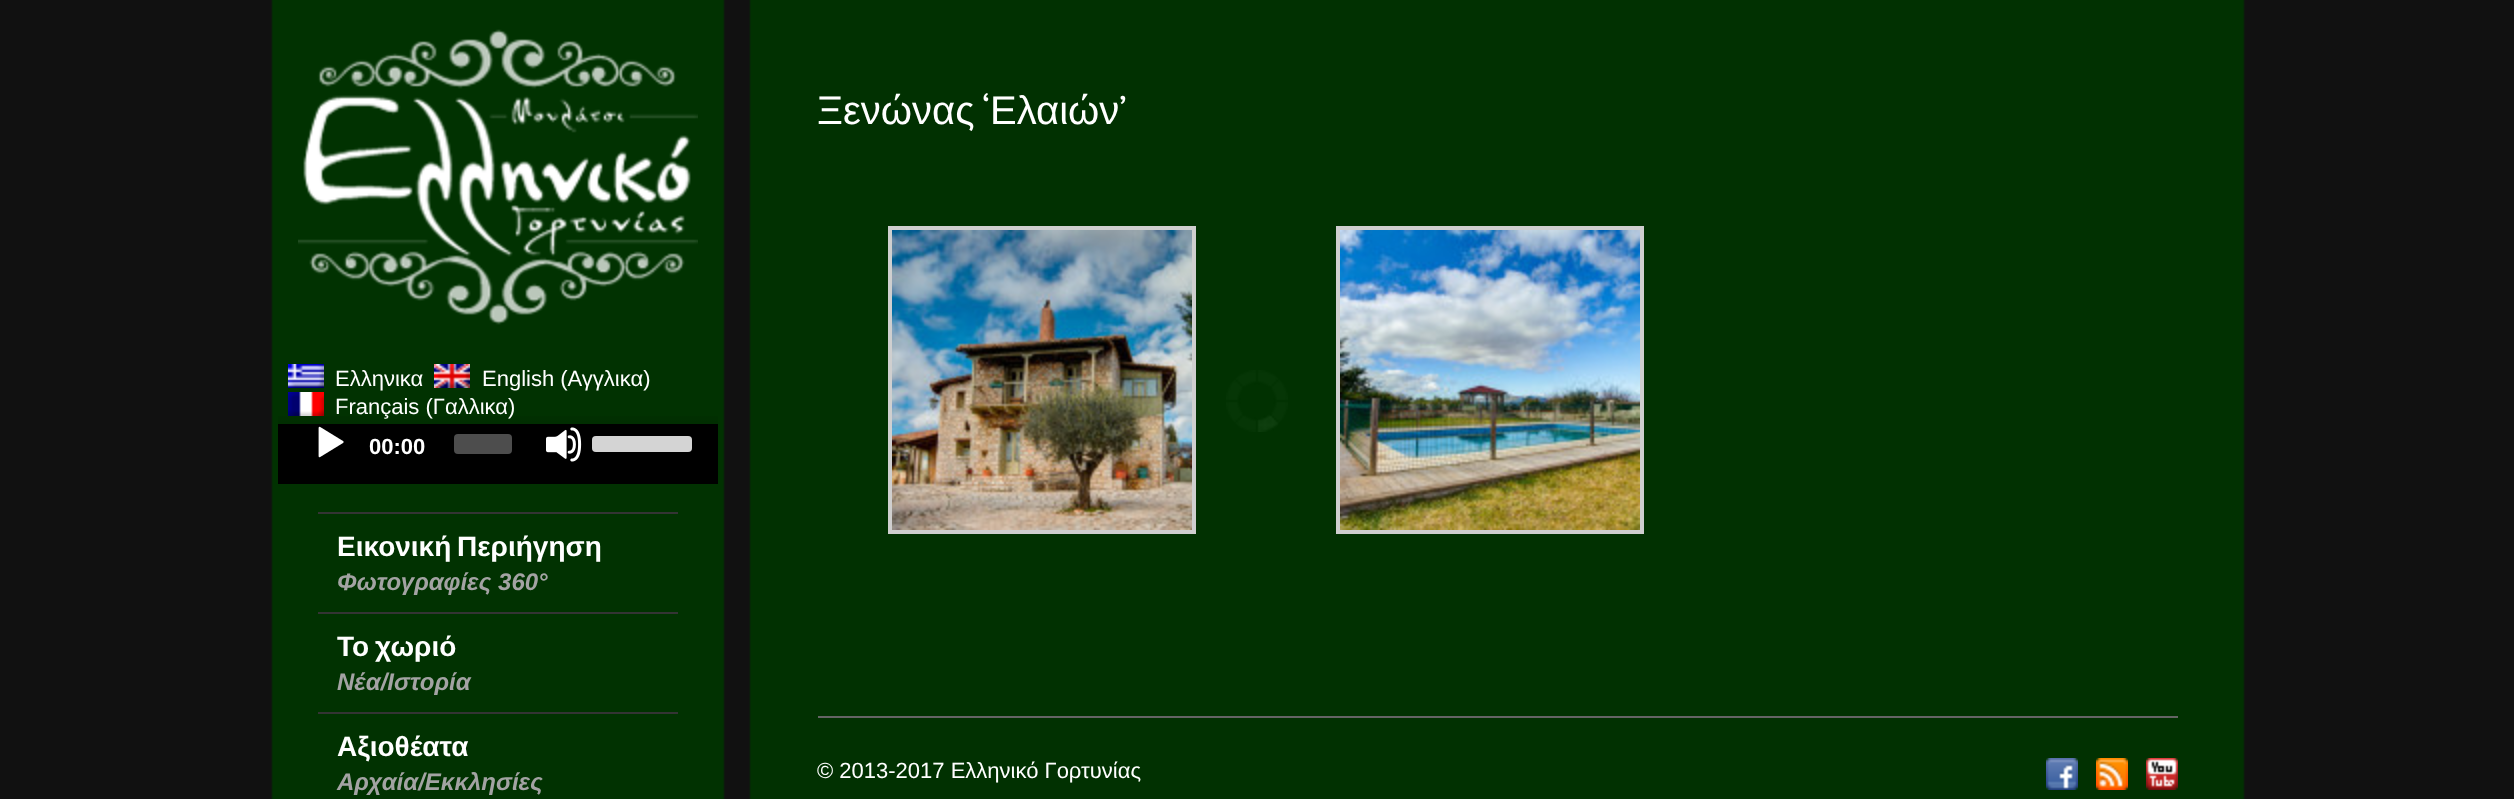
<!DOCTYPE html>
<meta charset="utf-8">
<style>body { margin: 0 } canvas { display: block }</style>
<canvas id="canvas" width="2514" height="799"></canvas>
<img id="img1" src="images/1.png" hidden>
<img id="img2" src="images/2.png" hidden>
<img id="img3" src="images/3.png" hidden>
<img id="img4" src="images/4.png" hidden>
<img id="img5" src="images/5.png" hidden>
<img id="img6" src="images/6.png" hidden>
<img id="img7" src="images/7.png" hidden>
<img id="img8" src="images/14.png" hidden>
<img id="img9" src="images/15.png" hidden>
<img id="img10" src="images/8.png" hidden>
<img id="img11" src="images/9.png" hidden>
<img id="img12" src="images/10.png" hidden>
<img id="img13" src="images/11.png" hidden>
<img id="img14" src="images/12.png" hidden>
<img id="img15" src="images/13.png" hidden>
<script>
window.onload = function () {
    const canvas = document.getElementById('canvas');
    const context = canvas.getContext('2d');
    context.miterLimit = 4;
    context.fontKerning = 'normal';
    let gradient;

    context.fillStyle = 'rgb(17, 17, 17)';
    context.fillRect(0, 0, 2514, 799);
    context.drawImage(document.getElementById('img1'), 271, 0, 454, 799);
    context.drawImage(document.getElementById('img2'), 298, 29, 400, 296);
    context.drawImage(document.getElementById('img3'), 288, 364, 36, 24);
    context.drawImage(document.getElementById('img4'), 434, 364, 36, 24);
    context.drawImage(document.getElementById('img5'), 288, 392, 36, 24);
    context.fillStyle = 'rgb(0, 0, 0)';
    context.fillRect(278, 424, 440, 60);
    gradient = context.createLinearGradient(498, 404, 498, 484);
    gradient.addColorStop(0, 'rgba(0, 0, 0, 0)');
    gradient.addColorStop(1, 'rgba(0, 0, 0, 0.35)');
    context.fillStyle = gradient;
    context.fillRect(278, 416, 440, 8);
    context.drawImage(document.getElementById('img6'), 318, 426, 26, 32);
    context.fillStyle = 'rgb(77, 77, 77)';
    context.beginPath();
    context.roundRect(454, 434, 58, 20, 4);
    context.fill();
    context.drawImage(document.getElementById('img7'), 546, 427, 36, 35);
    context.fillStyle = 'rgb(40, 40, 40)';
    context.beginPath();
    context.roundRect(592, 436, 100, 16, 4);
    context.fill();
    context.fillStyle = 'rgba(255, 255, 255, 0.8)';
    context.beginPath();
    context.roundRect(592, 436, 100, 16, 4);
    context.fill();
    context.fillStyle = 'rgb(52, 52, 52)';
    context.fillRect(318, 512, 360, 2);
    context.fillRect(318, 612, 360, 2);
    context.fillRect(318, 712, 360, 2);
    context.drawImage(document.getElementById('img8'), 1226, 370, 62, 62);
    context.drawImage(document.getElementById('img9'), 1226, 370, 62, 62);
    context.drawImage(document.getElementById('img10'), 749, 0, 1496, 799);
    context.strokeStyle = 'rgb(207, 207, 207)';
    context.lineWidth = 4;
    context.strokeRect(890, 228, 304, 304);
    context.drawImage(document.getElementById('img11'), 892, 230, 300, 300);
    context.strokeRect(1338, 228, 304, 304);
    context.drawImage(document.getElementById('img12'), 1340, 230, 300, 300);
    context.fillStyle = 'rgb(100, 100, 100)';
    context.fillRect(818, 716, 1360, 2);
    context.drawImage(document.getElementById('img13'), 2046, 758, 32, 32);
    context.drawImage(document.getElementById('img14'), 2096, 758, 32, 32);
    context.drawImage(document.getElementById('img15'), 2146, 758, 32, 32);
    context.font = '22px Liberation Sans';
    context.fillStyle = 'rgb(255, 255, 255)';
    context.fillText('Ελληνικα', 335, 386);
    context.fillText('English (Αγγλικα)', 482, 386);
    context.fillText('Français (Γαλλικα)', 335, 414);
    context.font = 'bold 22px Liberation Sans';
    context.fillText('00:00', 369, 454);
    context.wordSpacing = '-2px';
    context.font = 'bold 28px Liberation Sans';
    context.fillText('Εικονική Περιήγηση', 337, 556);
    context.wordSpacing = '0px';
    context.font = 'italic bold 24px Liberation Sans';
    context.fillStyle = 'rgb(163, 163, 163)';
    context.fillText('Φωτογραφίες 360°', 337, 590);
    context.wordSpacing = '-2px';
    context.font = 'bold 28px Liberation Sans';
    context.fillStyle = 'rgb(255, 255, 255)';
    context.fillText('Το χωριό', 337, 656);
    context.wordSpacing = '0px';
    context.font = 'italic bold 24px Liberation Sans';
    context.fillStyle = 'rgb(163, 163, 163)';
    context.fillText('Νέα/Ιστορία', 337, 690);
    context.font = 'bold 28px Liberation Sans';
    context.fillStyle = 'rgb(255, 255, 255)';
    context.fillText('Αξιοθέατα', 337, 756);
    context.font = 'italic bold 24px Liberation Sans';
    context.fillStyle = 'rgb(163, 163, 163)';
    context.fillText('Αρχαία/Εκκλησίες', 337, 790);
    context.font = '40px Liberation Sans';
    context.fillStyle = 'rgb(255, 255, 255)';
    context.fillText('Ξενώνας', 817, 124);
    context.font = '40px PT Sans';
    context.fillText('‘', 982, 124);
    context.font = '40px Liberation Sans';
    context.fillText('Ελαιών', 990, 124);
    context.font = '40px PT Sans';
    context.fillText('’', 1119, 124);
    context.font = '22px Liberation Sans';
    context.fillText('© 2013-2017 Ελληνικό Γορτυνίας', 817, 778);
};
</script>
